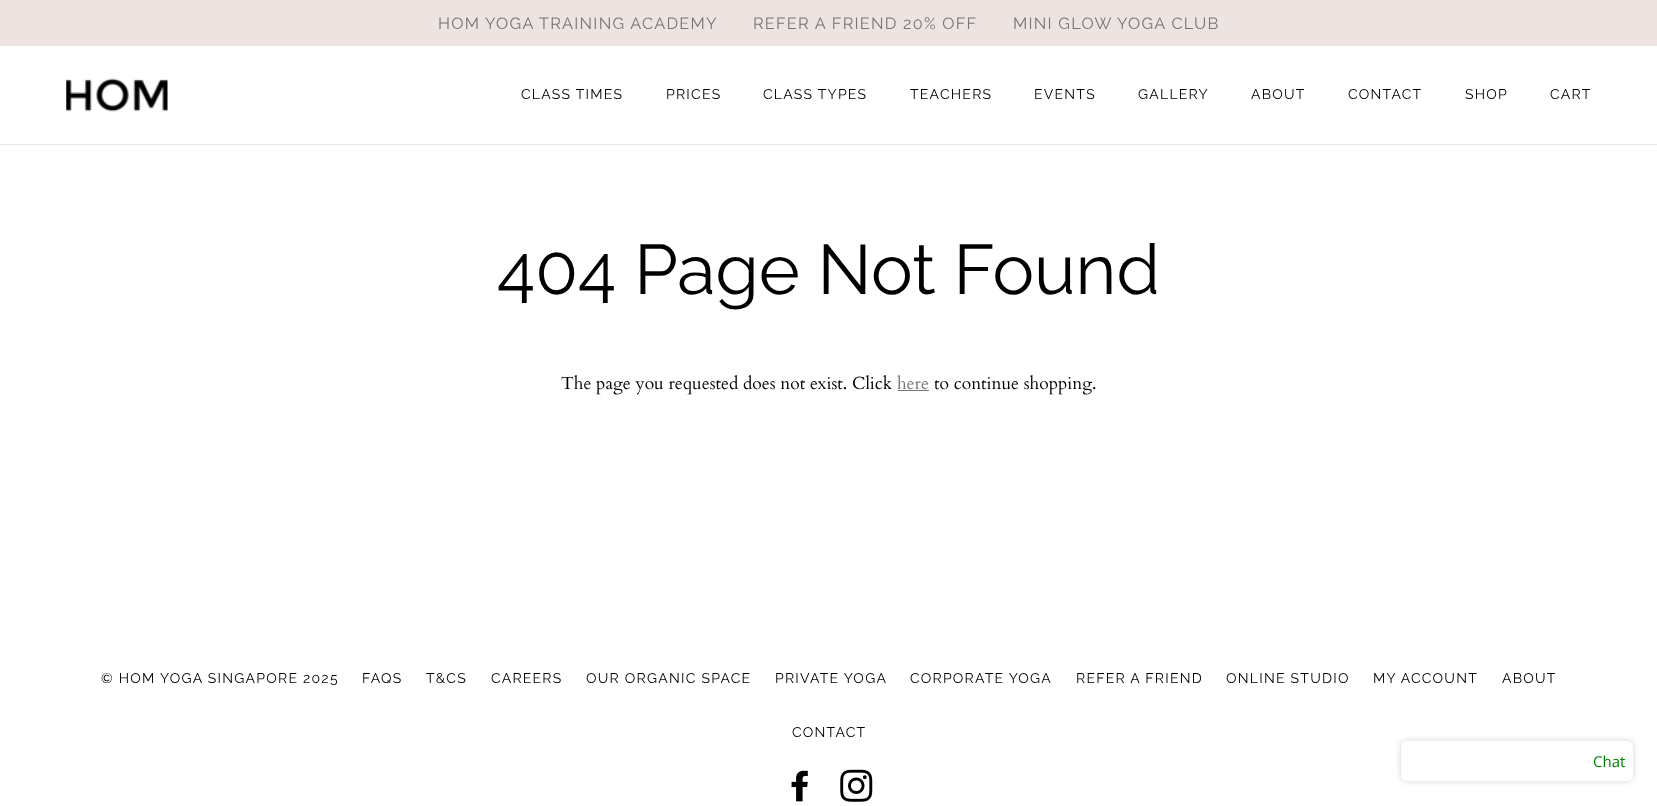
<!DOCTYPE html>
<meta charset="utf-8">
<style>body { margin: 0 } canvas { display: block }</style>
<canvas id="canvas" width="1657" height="806"></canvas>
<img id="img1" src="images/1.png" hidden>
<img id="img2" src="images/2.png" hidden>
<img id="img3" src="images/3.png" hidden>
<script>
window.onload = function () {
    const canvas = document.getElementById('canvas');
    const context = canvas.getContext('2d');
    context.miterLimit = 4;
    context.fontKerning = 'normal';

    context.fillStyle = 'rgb(255, 255, 255)';
    context.fillRect(0, 0, 1657, 806);
    context.fillStyle = 'rgb(237, 228, 226)';
    context.fillRect(0, 0, 1657, 46);
    context.fillRect(0, 144, 1657, 1);
    context.drawImage(document.getElementById('img1'), 66, 78, 102, 34);
    context.fillStyle = 'rgb(118, 116, 117)';
    context.fillRect(898, 390, 31, 1);
    context.drawImage(document.getElementById('img2'), 791, 770, 17, 32);
    context.drawImage(document.getElementById('img3'), 840, 769, 33, 33);
    context.fillStyle = 'rgb(211, 211, 211)';
    context.filter = 'blur(3px)';
    context.beginPath();
    context.roundRect(1401, 741, 232, 40, 6);
    context.fill();
    context.filter = 'none';
    context.fillStyle = 'rgb(255, 255, 255)';
    context.beginPath();
    context.roundRect(1401, 741, 232, 40, 6);
    context.fill();
    context.letterSpacing = '1.25px';
    context.font = '100 16.25px Raleway';
    context.fillStyle = 'rgb(118, 116, 117)';
    context.fillText('HOM YOGA TRAINING ACADEMY', 438, 29);
    context.fillText('REFER A FRIEND 20% OFF', 753, 29);
    context.fillText('MINI GLOW YOGA CLUB', 1013, 29);
    context.font = '100 14px Raleway';
    context.fillStyle = 'rgb(0, 0, 0)';
    context.fillText('CLASS TIMES', 521, 99);
    context.fillText('PRICES', 666, 99);
    context.fillText('CLASS TYPES', 763, 99);
    context.fillText('TEACHERS', 910, 99);
    context.fillText('EVENTS', 1034, 99);
    context.fillText('GALLERY', 1138, 99);
    context.fillText('ABOUT', 1251, 99);
    context.fillText('CONTACT', 1348, 99);
    context.fillText('SHOP', 1465, 99);
    context.fillText('CART', 1550, 99);
    context.letterSpacing = '0px';
    context.font = '100 70px Raleway';
    context.fillText('404 Page Not Found', 497, 294);
    context.font = '17.5px Cardo';
    context.fillText('The page you requested does not exist. Click', 561, 389);
    context.fillStyle = 'rgb(118, 116, 117)';
    context.fillText('here', 897, 389);
    context.fillStyle = 'rgb(0, 0, 0)';
    context.fillText('to continue shopping.', 934, 389);
    context.letterSpacing = '1.25px';
    context.font = '100 14px Raleway';
    context.fillText('© HOM YOGA SINGAPORE 2025', 101, 683);
    context.fillText('FAQS', 362, 683);
    context.fillText('T&CS', 426, 683);
    context.fillText('CAREERS', 491, 683);
    context.fillText('OUR ORGANIC SPACE', 586, 683);
    context.fillText('PRIVATE YOGA', 775, 683);
    context.fillText('CORPORATE YOGA', 910, 683);
    context.fillText('REFER A FRIEND', 1076, 683);
    context.fillText('ONLINE STUDIO', 1226, 683);
    context.fillText('MY ACCOUNT', 1373, 683);
    context.fillText('ABOUT', 1502, 683);
    context.fillText('CONTACT', 792, 737);
    context.letterSpacing = '0px';
    context.font = '15px Open Sans';
    context.fillStyle = 'rgb(0, 128, 0)';
    context.fillText('Chat', 1593, 767);
};
</script>
